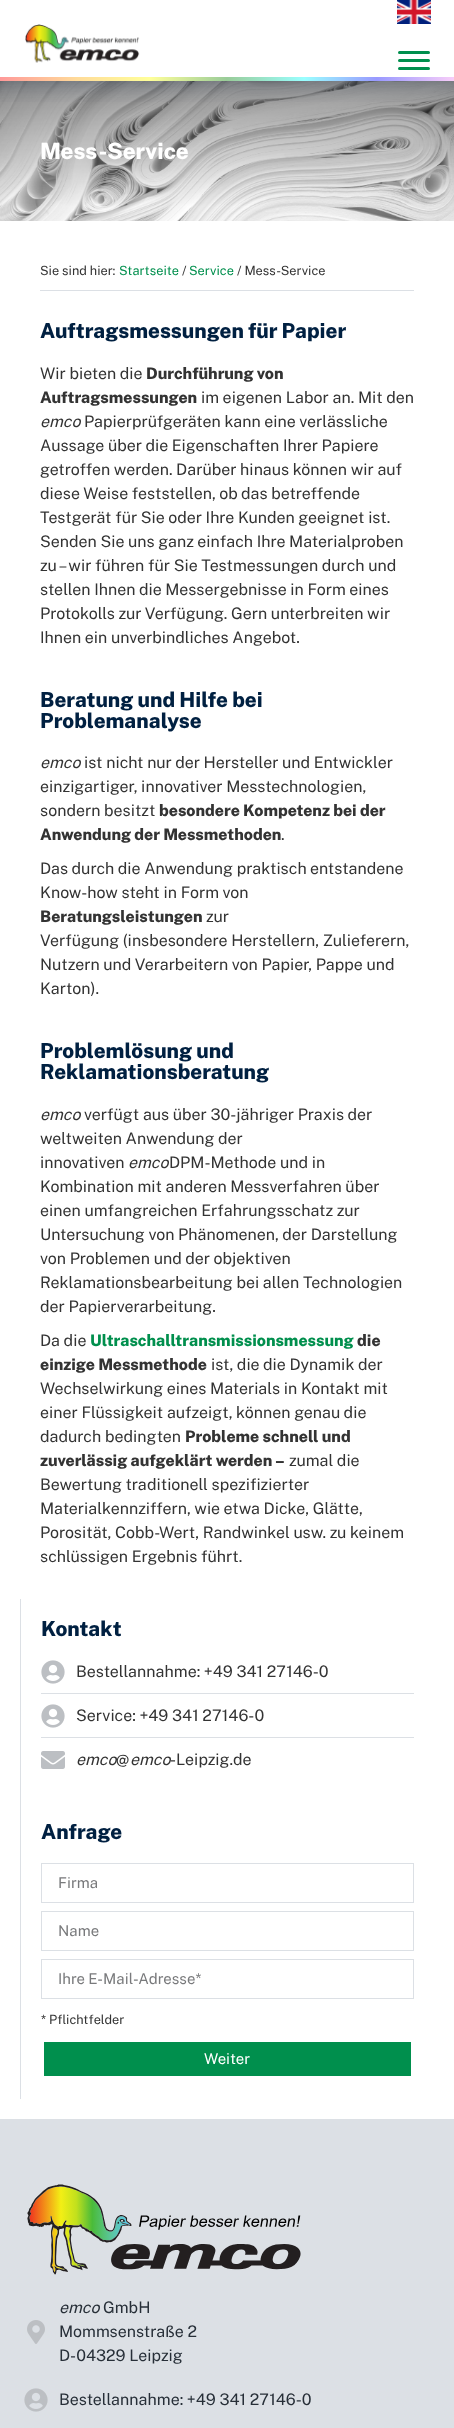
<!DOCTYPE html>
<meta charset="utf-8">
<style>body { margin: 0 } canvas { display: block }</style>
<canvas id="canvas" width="454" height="2428"></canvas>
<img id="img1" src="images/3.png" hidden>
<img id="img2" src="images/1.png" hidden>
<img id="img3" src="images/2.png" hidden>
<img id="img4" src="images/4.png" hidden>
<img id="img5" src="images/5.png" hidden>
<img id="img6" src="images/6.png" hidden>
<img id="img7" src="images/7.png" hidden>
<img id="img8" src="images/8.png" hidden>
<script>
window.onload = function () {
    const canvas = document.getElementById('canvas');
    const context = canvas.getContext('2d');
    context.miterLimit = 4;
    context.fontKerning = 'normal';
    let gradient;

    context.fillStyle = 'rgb(255, 255, 255)';
    context.fillRect(0, 0, 454, 2428);
    context.drawImage(document.getElementById('img1'), 0, 81, 454, 140);
    context.save();
    context.beginPath();
    context.rect(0, 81, 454, 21);
    context.clip();
    context.fillStyle = 'rgb(0, 24, 58)';
    context.filter = 'blur(20px)';
    context.beginPath();
    context.rect(-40, -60, 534, 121);
    context.fill();
    context.filter = 'none';
    context.restore();
    context.drawImage(document.getElementById('img2'), 25, 24, 115, 39);
    context.drawImage(document.getElementById('img3'), 397, 0, 34, 24);
    context.fillStyle = 'rgb(0, 143, 77)';
    context.beginPath();
    context.roundRect(398, 51, 32, 3, 1.5);
    context.fill();
    context.beginPath();
    context.roundRect(398, 59, 32, 3, 1.5);
    context.fill();
    context.beginPath();
    context.roundRect(398, 67, 32, 3, 1.5);
    context.fill();
    gradient = context.createLinearGradient(0, 79, 454, 79);
    gradient.addColorStop(0, 'rgb(255, 153, 153)');
    gradient.addColorStop(0.17, 'rgb(255, 219, 153)');
    gradient.addColorStop(0.33, 'rgb(255, 255, 153)');
    gradient.addColorStop(0.5, 'rgb(153, 204, 153)');
    gradient.addColorStop(0.67, 'rgb(153, 255, 255)');
    gradient.addColorStop(0.83, 'rgb(153, 153, 255)');
    gradient.addColorStop(1, 'rgb(248, 205, 248)');
    context.fillStyle = gradient;
    context.fillRect(0, 77, 454, 4);
    context.fillStyle = 'rgb(220, 224, 229)';
    context.fillRect(40, 290, 374, 1);
    context.fillRect(20, 1599, 1, 500);
    context.drawImage(document.getElementById('img4'), 41, 1660, 24, 24);
    context.fillRect(41, 1693, 373, 1);
    context.drawImage(document.getElementById('img4'), 41, 1704, 24, 24);
    context.fillRect(41, 1737, 373, 1);
    context.drawImage(document.getElementById('img5'), 41, 1751, 24, 18);
    context.strokeStyle = 'rgb(220, 224, 229)';
    context.strokeRect(41.5, 1863.5, 372, 39);
    context.strokeRect(41.5, 1911.5, 372, 39);
    context.strokeRect(41.5, 1959.5, 372, 39);
    context.fillStyle = 'rgb(0, 143, 77)';
    context.fillRect(44, 2042, 367, 34);
    context.fillStyle = 'rgb(220, 224, 229)';
    context.fillRect(0, 2119, 454, 309);
    context.drawImage(document.getElementById('img6'), 27, 2184, 274, 91);
    context.drawImage(document.getElementById('img7'), 27, 2320, 18, 24);
    context.drawImage(document.getElementById('img8'), 24, 2388, 24, 24);
    context.font = '100 22.5px Public Sans';
    context.fillStyle = 'rgb(255, 255, 255)';
    context.fillText('Mess-Service', 40, 159);
    context.font = '100 12.75px "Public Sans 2"';
    context.fillStyle = 'rgb(51, 51, 51)';
    context.fillText('Sie sind hier:', 40, 275);
    context.fillStyle = 'rgb(0, 143, 77)';
    context.fillText('Startseite', 119, 275);
    context.fillStyle = 'rgb(51, 51, 51)';
    context.fillText('/', 182, 275);
    context.fillStyle = 'rgb(0, 143, 77)';
    context.fillText('Service', 189, 275);
    context.fillStyle = 'rgb(51, 51, 51)';
    context.fillText('/ Mess-Service', 237, 275);
    context.font = '100 20.75px Public Sans';
    context.fillStyle = 'rgb(0, 32, 65)';
    context.fillText('Auftragsmessungen für Papier', 40, 338);
    context.font = '100 16px "Public Sans 2"';
    context.fillStyle = 'rgb(51, 51, 51)';
    context.fillText('Wir bieten die', 40, 379);
    context.font = '100 16px Public Sans';
    context.fillText('Durchführung von', 146, 379);
    context.fillText('Auftragsmessungen', 40, 403);
    context.font = '100 16px "Public Sans 2"';
    context.fillText('im eigenen Labor an. Mit den', 201, 403);
    context.font = 'italic 100 16px Public Sans';
    context.fillText('emco', 40, 427);
    context.font = '100 16px "Public Sans 2"';
    context.fillText('Papierprüfgeräten kann eine verlässliche', 84, 427);
    context.fillText('Aussage über die Eigenschaften Ihrer Papiere', 40, 451);
    context.fillText('getroffen werden. Darüber hinaus können wir auf', 40, 475);
    context.fillText('diese Weise feststellen, ob das betreffende', 40, 499);
    context.fillText('Testgerät für Sie oder Ihre Kunden geeignet ist.', 40, 523);
    context.fillText('Senden Sie uns ganz einfach Ihre Materialproben', 40, 547);
    context.fillText('zu – wir führen für Sie Testmessungen durch und', 40, 571);
    context.fillText('stellen Ihnen die Messergebnisse in Form eines', 40, 595);
    context.fillText('Protokolls zur Verfügung. Gern unterbreiten wir', 40, 619);
    context.fillText('Ihnen ein unverbindliches Angebot.', 40, 643);
    context.font = '100 20.75px Public Sans';
    context.fillStyle = 'rgb(0, 32, 65)';
    context.fillText('Beratung und Hilfe bei', 40, 707);
    context.fillText('Problemanalyse', 40, 728);
    context.font = 'italic 100 16px Public Sans';
    context.fillStyle = 'rgb(51, 51, 51)';
    context.fillText('emco', 40, 768);
    context.font = '100 16px "Public Sans 2"';
    context.fillText('ist nicht nur der Hersteller und Entwickler', 84, 768);
    context.fillText('einzigartiger, innovativer Messtechnologien,', 40, 792);
    context.fillText('sondern besitzt', 40, 816);
    context.font = '100 16px Public Sans';
    context.fillText('besondere Kompetenz bei der', 159, 816);
    context.fillText('Anwendung der Messmethoden', 40, 840);
    context.font = '100 16px "Public Sans 2"';
    context.fillText('.', 281, 840);
    context.fillText('Das durch die Anwendung praktisch entstandene', 40, 874);
    context.fillText('Know-how steht in Form von', 40, 898);
    context.font = '100 16px Public Sans';
    context.fillText('Beratungsleistungen', 40, 922);
    context.font = '100 16px "Public Sans 2"';
    context.fillText('zur', 206, 922);
    context.fillText('Verfügung (insbesondere Herstellern, Zulieferern,', 40, 946);
    context.fillText('Nutzern und Verarbeitern von Papier, Pappe und', 40, 970);
    context.fillText('Karton).', 40, 994);
    context.font = '100 20.75px Public Sans';
    context.fillStyle = 'rgb(0, 32, 65)';
    context.fillText('Problemlösung und', 40, 1058);
    context.fillText('Reklamationsberatung', 40, 1079);
    context.font = 'italic 100 16px Public Sans';
    context.fillStyle = 'rgb(51, 51, 51)';
    context.fillText('emco', 40, 1120);
    context.font = '100 16px "Public Sans 2"';
    context.fillText('verfügt aus über 30-jähriger Praxis der', 84, 1120);
    context.fillText('weltweiten Anwendung der', 40, 1144);
    context.fillText('innovativen', 40, 1168);
    context.font = 'italic 100 16px Public Sans';
    context.fillText('emco', 128, 1168);
    context.font = '100 16px "Public Sans 2"';
    context.fillText('DPM-Methode und in', 169, 1168);
    context.fillText('Kombination mit anderen Messverfahren über', 40, 1192);
    context.fillText('einen umfangreichen Erfahrungsschatz zur', 40, 1216);
    context.fillText('Untersuchung von Phänomenen, der Darstellung', 40, 1240);
    context.fillText('von Problemen und der objektiven', 40, 1264);
    context.fillText('Reklamationsbearbeitung bei allen Technologien', 40, 1288);
    context.fillText('der Papierverarbeitung.', 40, 1312);
    context.fillText('Da die', 40, 1346);
    context.font = '100 16px Public Sans';
    context.fillStyle = 'rgb(0, 143, 77)';
    context.fillText('Ultraschalltransmissionsmessung', 90, 1346);
    context.fillStyle = 'rgb(51, 51, 51)';
    context.fillText('die', 357, 1346);
    context.fillText('einzige Messmethode', 40, 1370);
    context.font = '100 16px "Public Sans 2"';
    context.fillText('ist, die die Dynamik der', 211, 1370);
    context.fillText('Wechselwirkung eines Materials in Kontakt mit', 40, 1394);
    context.fillText('einer Flüssigkeit aufzeigt, können genau die', 40, 1418);
    context.fillText('dadurch bedingten', 40, 1442);
    context.font = '100 16px Public Sans';
    context.fillText('Probleme schnell und', 185, 1442);
    context.fillText('zuverlässig aufgeklärt werden –', 40, 1466);
    context.font = '100 16px "Public Sans 2"';
    context.fillText('zumal die', 289, 1466);
    context.fillText('Bewertung traditionell spezifizierter', 40, 1490);
    context.fillText('Materialkennziffern, wie etwa Dicke, Glätte,', 40, 1514);
    context.fillText('Porosität, Cobb-Wert, Randwinkel usw. zu keinem', 40, 1538);
    context.fillText('schlüssigen Ergebnis führt.', 40, 1562);
    context.font = '100 20.75px Public Sans';
    context.fillStyle = 'rgb(0, 32, 65)';
    context.fillText('Kontakt', 41, 1636);
    context.font = '100 16px "Public Sans 2"';
    context.fillStyle = 'rgb(51, 51, 51)';
    context.fillText('Bestellannahme: +49 341 27146-0', 76, 1677);
    context.fillText('Service: +49 341 27146-0', 76, 1721);
    context.font = 'italic 100 16px Public Sans';
    context.fillText('emco', 76, 1765);
    context.font = '100 16px "Public Sans 2"';
    context.fillText('@', 116, 1765);
    context.font = 'italic 100 16px Public Sans';
    context.fillText('emco', 130, 1765);
    context.font = '100 16px "Public Sans 2"';
    context.fillText('-Leipzig.de', 170, 1765);
    context.font = '100 20.75px Public Sans';
    context.fillStyle = 'rgb(0, 32, 65)';
    context.fillText('Anfrage', 41, 1839);
    context.font = '100 15px "Public Sans 2"';
    context.fillStyle = 'rgb(121, 122, 124)';
    context.fillText('Firma', 58, 1888);
    context.fillText('Name', 58, 1936);
    context.fillText('Ihre E-Mail-Adresse*', 58, 1984);
    context.font = '100 12.75px "Public Sans 2"';
    context.fillStyle = 'rgb(51, 51, 51)';
    context.fillText('* Pflichtfelder', 41, 2024);
    context.font = '100 15px "Public Sans 2"';
    context.fillStyle = 'rgb(255, 255, 255)';
    context.fillText('Weiter', 204, 2064);
    context.font = 'italic 100 16px Public Sans';
    context.fillStyle = 'rgb(39, 47, 56)';
    context.fillText('emco', 59, 2313);
    context.font = '100 16px "Public Sans 2"';
    context.fillText('GmbH', 103, 2313);
    context.fillText('Mommsenstraße 2', 59, 2337);
    context.fillText('D-04329 Leipzig', 59, 2361);
    context.fillText('Bestellannahme: +49 341 27146-0', 59, 2405);
};
</script>
